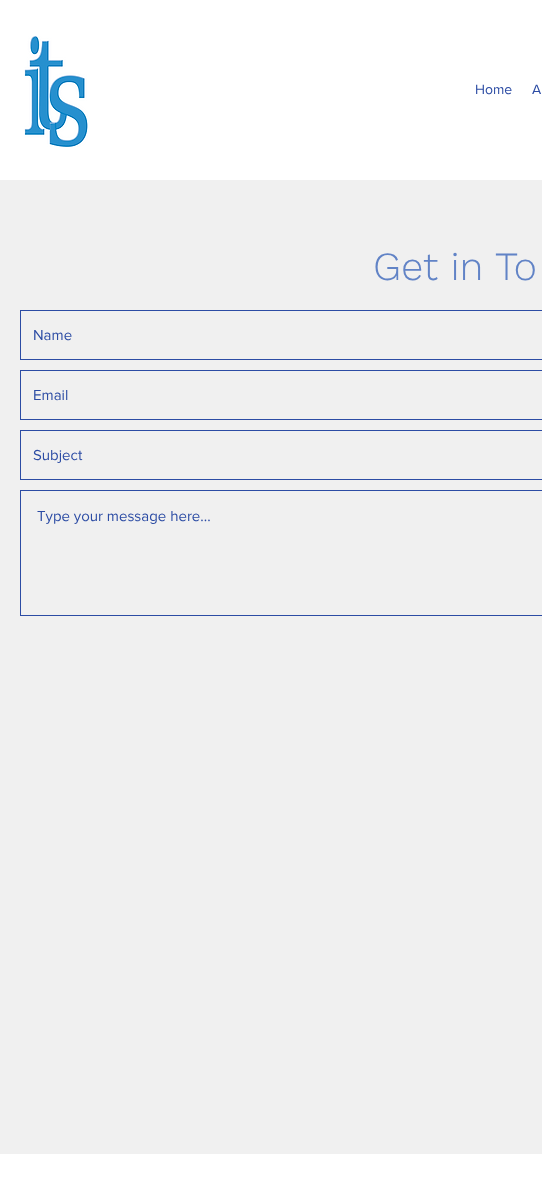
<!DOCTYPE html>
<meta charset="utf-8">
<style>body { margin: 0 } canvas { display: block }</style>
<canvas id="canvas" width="542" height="1189"></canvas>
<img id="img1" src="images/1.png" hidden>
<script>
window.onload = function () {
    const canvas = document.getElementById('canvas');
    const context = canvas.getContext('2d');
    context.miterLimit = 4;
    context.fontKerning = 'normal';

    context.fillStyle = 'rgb(255, 255, 255)';
    context.fillRect(0, 0, 542, 1189);
    context.drawImage(document.getElementById('img1'), 24, 36, 64, 111);
    context.fillStyle = 'rgb(240, 240, 240)';
    context.fillRect(0, 180, 542, 974);
    context.strokeStyle = 'rgb(44, 76, 164)';
    context.strokeRect(20.5, 310.5, 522, 49);
    context.strokeRect(20.5, 370.5, 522, 49);
    context.strokeRect(20.5, 430.5, 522, 49);
    context.strokeRect(20.5, 490.5, 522, 125);
    context.font = '14px "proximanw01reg"';
    context.fillStyle = 'rgb(44, 76, 164)';
    context.fillText('Home', 475, 94);
    context.fillText('A', 532, 94);
    context.font = '300 40px Work Sans';
    context.fillStyle = 'rgb(97, 131, 198)';
    context.fillText('Get in To', 373, 280);
    context.font = '15px "proximanw01reg"';
    context.fillStyle = 'rgb(44, 76, 164)';
    context.fillText('Name', 33, 340);
    context.fillText('Email', 33, 400);
    context.fillText('Subject', 33, 460);
    context.fillText('Type your message here...', 37, 521);
};
</script>
